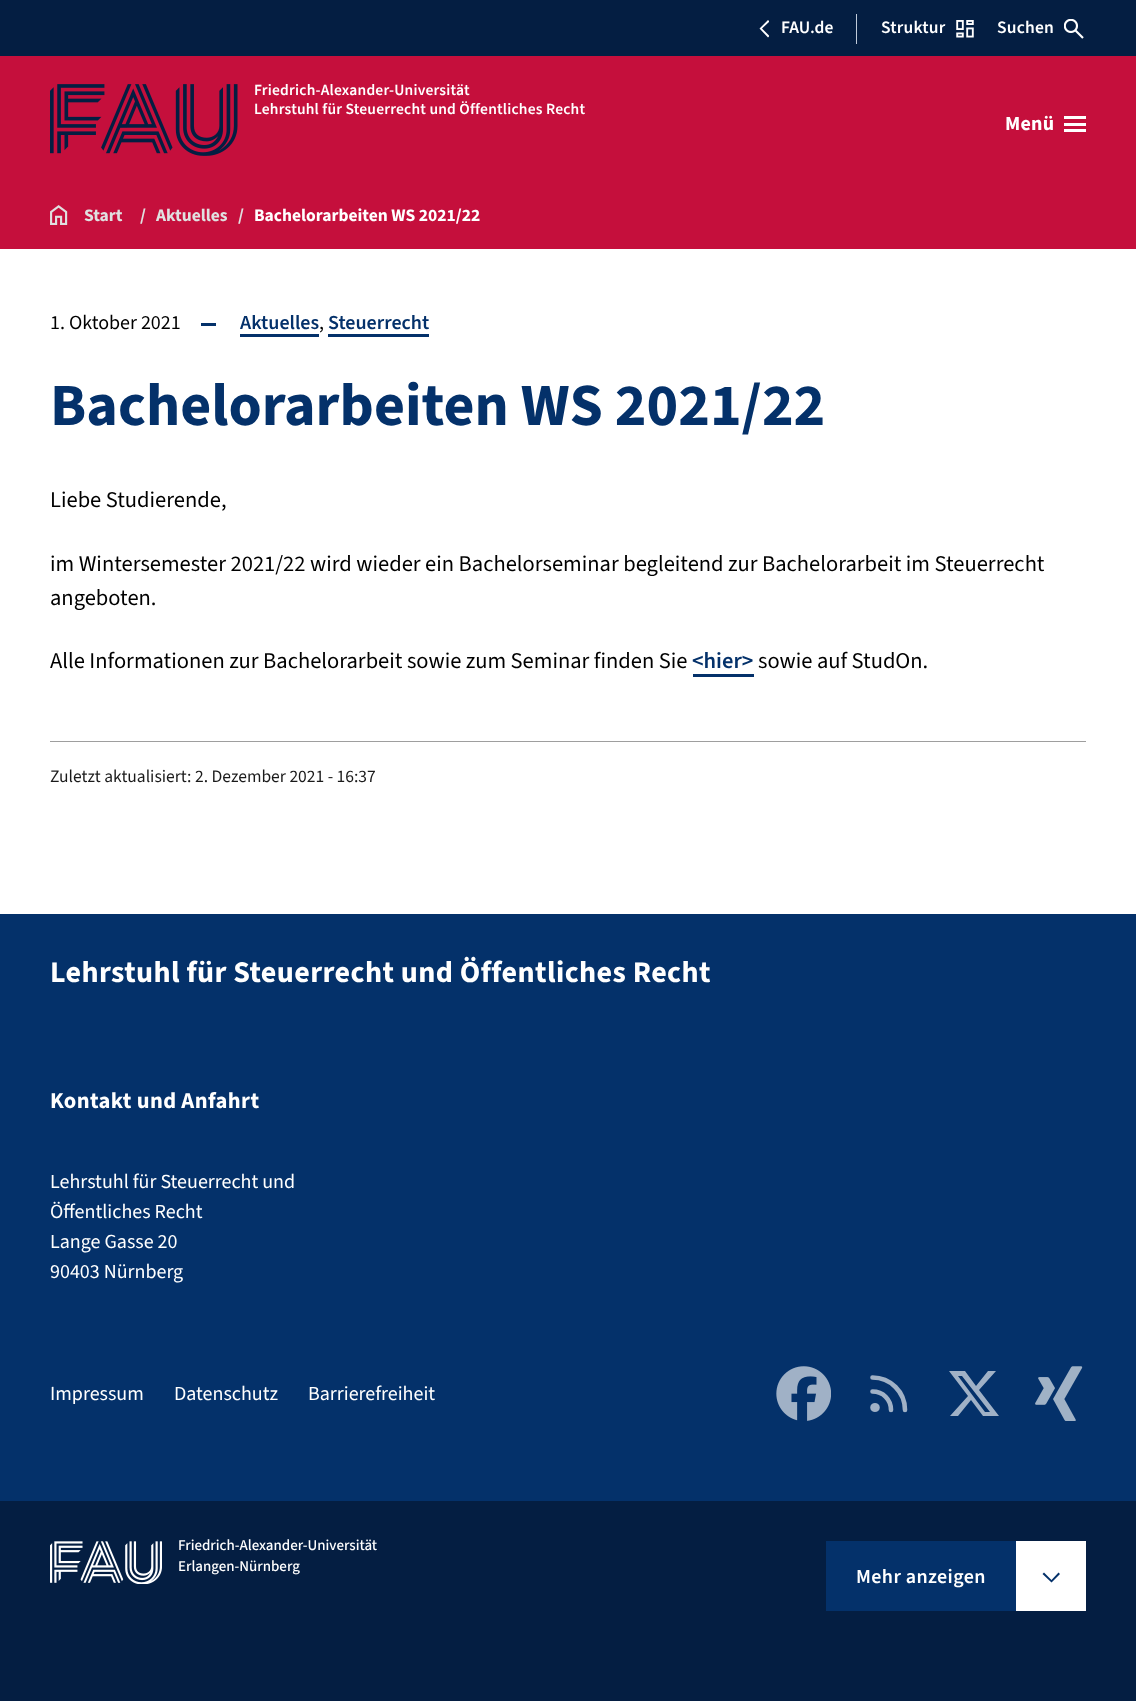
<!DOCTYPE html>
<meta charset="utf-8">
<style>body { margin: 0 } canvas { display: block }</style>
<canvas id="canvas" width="1136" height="1701"></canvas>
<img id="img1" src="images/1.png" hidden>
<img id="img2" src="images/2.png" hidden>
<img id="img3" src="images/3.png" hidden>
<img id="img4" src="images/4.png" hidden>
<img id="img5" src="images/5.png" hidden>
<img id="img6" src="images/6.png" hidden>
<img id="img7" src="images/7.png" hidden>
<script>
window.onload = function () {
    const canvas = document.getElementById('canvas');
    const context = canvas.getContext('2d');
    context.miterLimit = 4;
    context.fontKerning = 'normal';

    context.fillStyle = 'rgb(255, 255, 255)';
    context.fillRect(0, 0, 1136, 1701);
    context.fillStyle = 'rgb(197, 15, 60)';
    context.fillRect(0, 56, 1136, 193);
    context.fillStyle = 'rgb(4, 30, 66)';
    context.fillRect(0, 0, 1136, 56);
    context.save();
    context.beginPath();
    context.rect(759, 20, 10, 18);
    context.clip();
    context.fillStyle = 'rgb(255, 255, 255)';
    context.beginPath();
    context.moveTo(768, 37.5);
    context.lineTo(769.5, 36);
    context.lineTo(762, 28.5);
    context.lineTo(769.5, 21.5);
    context.lineTo(768, 20);
    context.lineTo(759.5, 28.5);
    context.closePath();
    context.fill();
    context.restore();
    context.fillStyle = 'rgb(192, 203, 218)';
    context.fillRect(856, 14, 1, 30);
    context.drawImage(document.getElementById('img1'), 956, 20, 18, 18);
    context.drawImage(document.getElementById('img2'), 1064, 19, 20, 20);
    context.drawImage(document.getElementById('img3'), 50, 84, 188, 72);
    context.fillStyle = 'rgb(255, 255, 255)';
    context.fillRect(1064, 116, 22, 3);
    context.fillRect(1064, 123, 22, 3);
    context.fillRect(1064, 129, 22, 3);
    context.drawImage(document.getElementById('img4'), 50, 205, 18, 20);
    context.fillStyle = 'rgb(4, 49, 106)';
    context.fillRect(201, 323, 15, 3);
    context.fillRect(328, 334, 101, 3);
    context.fillRect(240, 334, 79, 3);
    context.fillRect(693, 674, 61, 3);
    context.fillStyle = 'rgb(158, 158, 158)';
    context.fillRect(50, 741, 1036, 1);
    context.fillStyle = 'rgb(4, 49, 106)';
    context.fillRect(0, 914, 1136, 587);
    context.drawImage(document.getElementById('img5'), 776, 1366, 55, 55);
    context.beginPath();
    context.moveTo(872.5, 1391.5);
    context.bezierCurveTo(883, 1391.5, 891, 1399.5, 891, 1410);
    context.moveTo(872.5, 1377.5);
    context.bezierCurveTo(890.5, 1377.5, 905, 1392, 905, 1410);
    context.moveTo(877.5, 1407.5);
    context.bezierCurveTo(877.5, 1410.5, 872.5, 1410.5, 872.5, 1407.5);
    context.bezierCurveTo(872.5, 1404.5, 877.5, 1404.5, 877.5, 1407.5);
    context.strokeStyle = 'rgb(160, 177, 198)';
    context.lineWidth = 4.6;
    context.lineCap = 'round';
    context.lineJoin = 'round';
    context.stroke();
    context.fillStyle = 'rgb(160, 177, 198)';
    context.beginPath();
    context.moveTo(988, 1371);
    context.lineTo(996, 1371);
    context.lineTo(979, 1390);
    context.lineTo(999, 1416);
    context.lineTo(983, 1416);
    context.lineTo(971, 1400);
    context.lineTo(958, 1416);
    context.lineTo(950, 1416);
    context.lineTo(968, 1396);
    context.lineTo(949, 1371);
    context.lineTo(965, 1371);
    context.lineTo(976, 1386);
    context.closePath();
    context.moveTo(985, 1412);
    context.lineTo(990, 1412);
    context.lineTo(962, 1376);
    context.lineTo(958, 1376);
    context.closePath();
    context.fill();
    context.drawImage(document.getElementById('img6'), 1035, 1366, 48, 55);
    context.fillStyle = 'rgb(4, 30, 66)';
    context.fillRect(0, 1501, 1136, 200);
    context.drawImage(document.getElementById('img7'), 50, 1541, 112, 43);
    context.fillStyle = 'rgb(4, 49, 106)';
    context.fillRect(826, 1541, 190, 70);
    context.fillStyle = 'rgb(255, 255, 255)';
    context.fillRect(1016, 1541, 70, 70);
    context.fillStyle = 'rgb(4, 49, 106)';
    context.beginPath();
    context.moveTo(1042.5, 1574);
    context.lineTo(1044, 1572.5);
    context.lineTo(1051.5, 1580);
    context.lineTo(1058.5, 1572.5);
    context.lineTo(1060, 1574);
    context.lineTo(1051.5, 1582.5);
    context.closePath();
    context.fill();
    context.font = '600 17.5px "Source Sans 3"';
    context.fillStyle = 'rgb(255, 255, 255)';
    context.fillText('FAU.de', 781, 33);
    context.letterSpacing = '0.2px';
    context.fillText('Struktur', 881, 33);
    context.fillText('Suchen', 997, 33);
    context.font = '600 15.5px "Source Sans 3"';
    context.fillText('Friedrich-Alexander-Universität', 254, 95);
    context.fillText('Lehrstuhl für Steuerrecht und Öffentliches Recht', 254, 114);
    context.font = 'bold 20px "Source Sans 3"';
    context.fillText('Menü', 1005, 130);
    context.letterSpacing = '0px';
    context.font = 'bold 17.5px "Source Sans 3"';
    context.fillStyle = 'rgb(224, 224, 224)';
    context.fillText('Start', 84, 221);
    context.fillText('/', 140, 221);
    context.fillText('Aktuelles', 156, 221);
    context.fillText('/', 238, 221);
    context.fillStyle = 'rgb(255, 255, 255)';
    context.fillText('Bachelorarbeiten WS 2021/22', 254, 221);
    context.font = '20px "Source Sans 3"';
    context.fillStyle = 'rgb(0, 0, 0)';
    context.fillText('1. Oktober 2021', 50, 329);
    context.font = '600 20px "Source Sans 3"';
    context.fillStyle = 'rgb(4, 49, 106)';
    context.fillText('Aktuelles', 240, 329);
    context.fillText('Steuerrecht', 328, 329);
    context.font = '20px "Source Sans 3"';
    context.fillStyle = 'rgb(0, 0, 0)';
    context.fillText(',', 319, 329);
    context.font = 'bold 60px "Source Sans 3"';
    context.fillStyle = 'rgb(4, 49, 106)';
    context.fillText('Bachelorarbeiten WS 2021/22', 50, 425);
    context.font = '22.5px "Source Sans 3"';
    context.fillStyle = 'rgb(0, 0, 0)';
    context.fillText('Liebe Studierende,', 50, 507);
    context.fillText('im Wintersemester 2021/22 wird wieder ein Bachelorseminar begleitend zur Bachelorarbeit im Steuerrecht', 50, 571);
    context.fillText('angeboten.', 50, 605);
    context.fillText('Alle Informationen zur Bachelorarbeit sowie zum Seminar finden Sie', 50, 668);
    context.font = '600 22.5px "Source Sans 3"';
    context.fillStyle = 'rgb(4, 49, 106)';
    context.fillText('<hier>', 692, 668);
    context.font = '22.5px "Source Sans 3"';
    context.fillStyle = 'rgb(0, 0, 0)';
    context.fillText('sowie auf StudOn.', 758, 668);
    context.font = '17.5px "Source Sans 3"';
    context.fillStyle = 'rgb(26, 26, 26)';
    context.fillText('Zuletzt aktualisiert:', 50, 782);
    context.fillText('2. Dezember 2021 - 16:37', 195, 782);
    context.letterSpacing = '0.4px';
    context.font = 'bold 30px "Source Sans 3"';
    context.fillStyle = 'rgb(255, 255, 255)';
    context.fillText('Lehrstuhl für Steuerrecht und Öffentliches Recht', 50, 982);
    context.font = 'bold 22.5px "Source Sans 3"';
    context.fillText('Kontakt und Anfahrt', 50, 1108);
    context.letterSpacing = '0px';
    context.font = '20px "Source Sans 3"';
    context.fillText('Lehrstuhl für Steuerrecht und', 50, 1188);
    context.fillText('Öffentliches Recht', 50, 1218);
    context.fillText('Lange Gasse 20', 50, 1248);
    context.fillText('90403 Nürnberg', 50, 1278);
    context.fillText('Impressum', 50, 1400);
    context.fillText('Datenschutz', 174, 1400);
    context.fillText('Barrierefreiheit', 308, 1400);
    context.font = '500 15px "Source Sans 3"';
    context.fillText('Friedrich-Alexander-Universität', 178, 1550);
    context.fillText('Erlangen-Nürnberg', 178, 1571);
    context.letterSpacing = '0.4px';
    context.font = '600 20px "Source Sans 3"';
    context.fillText('Mehr anzeigen', 856, 1583);
};
</script>
